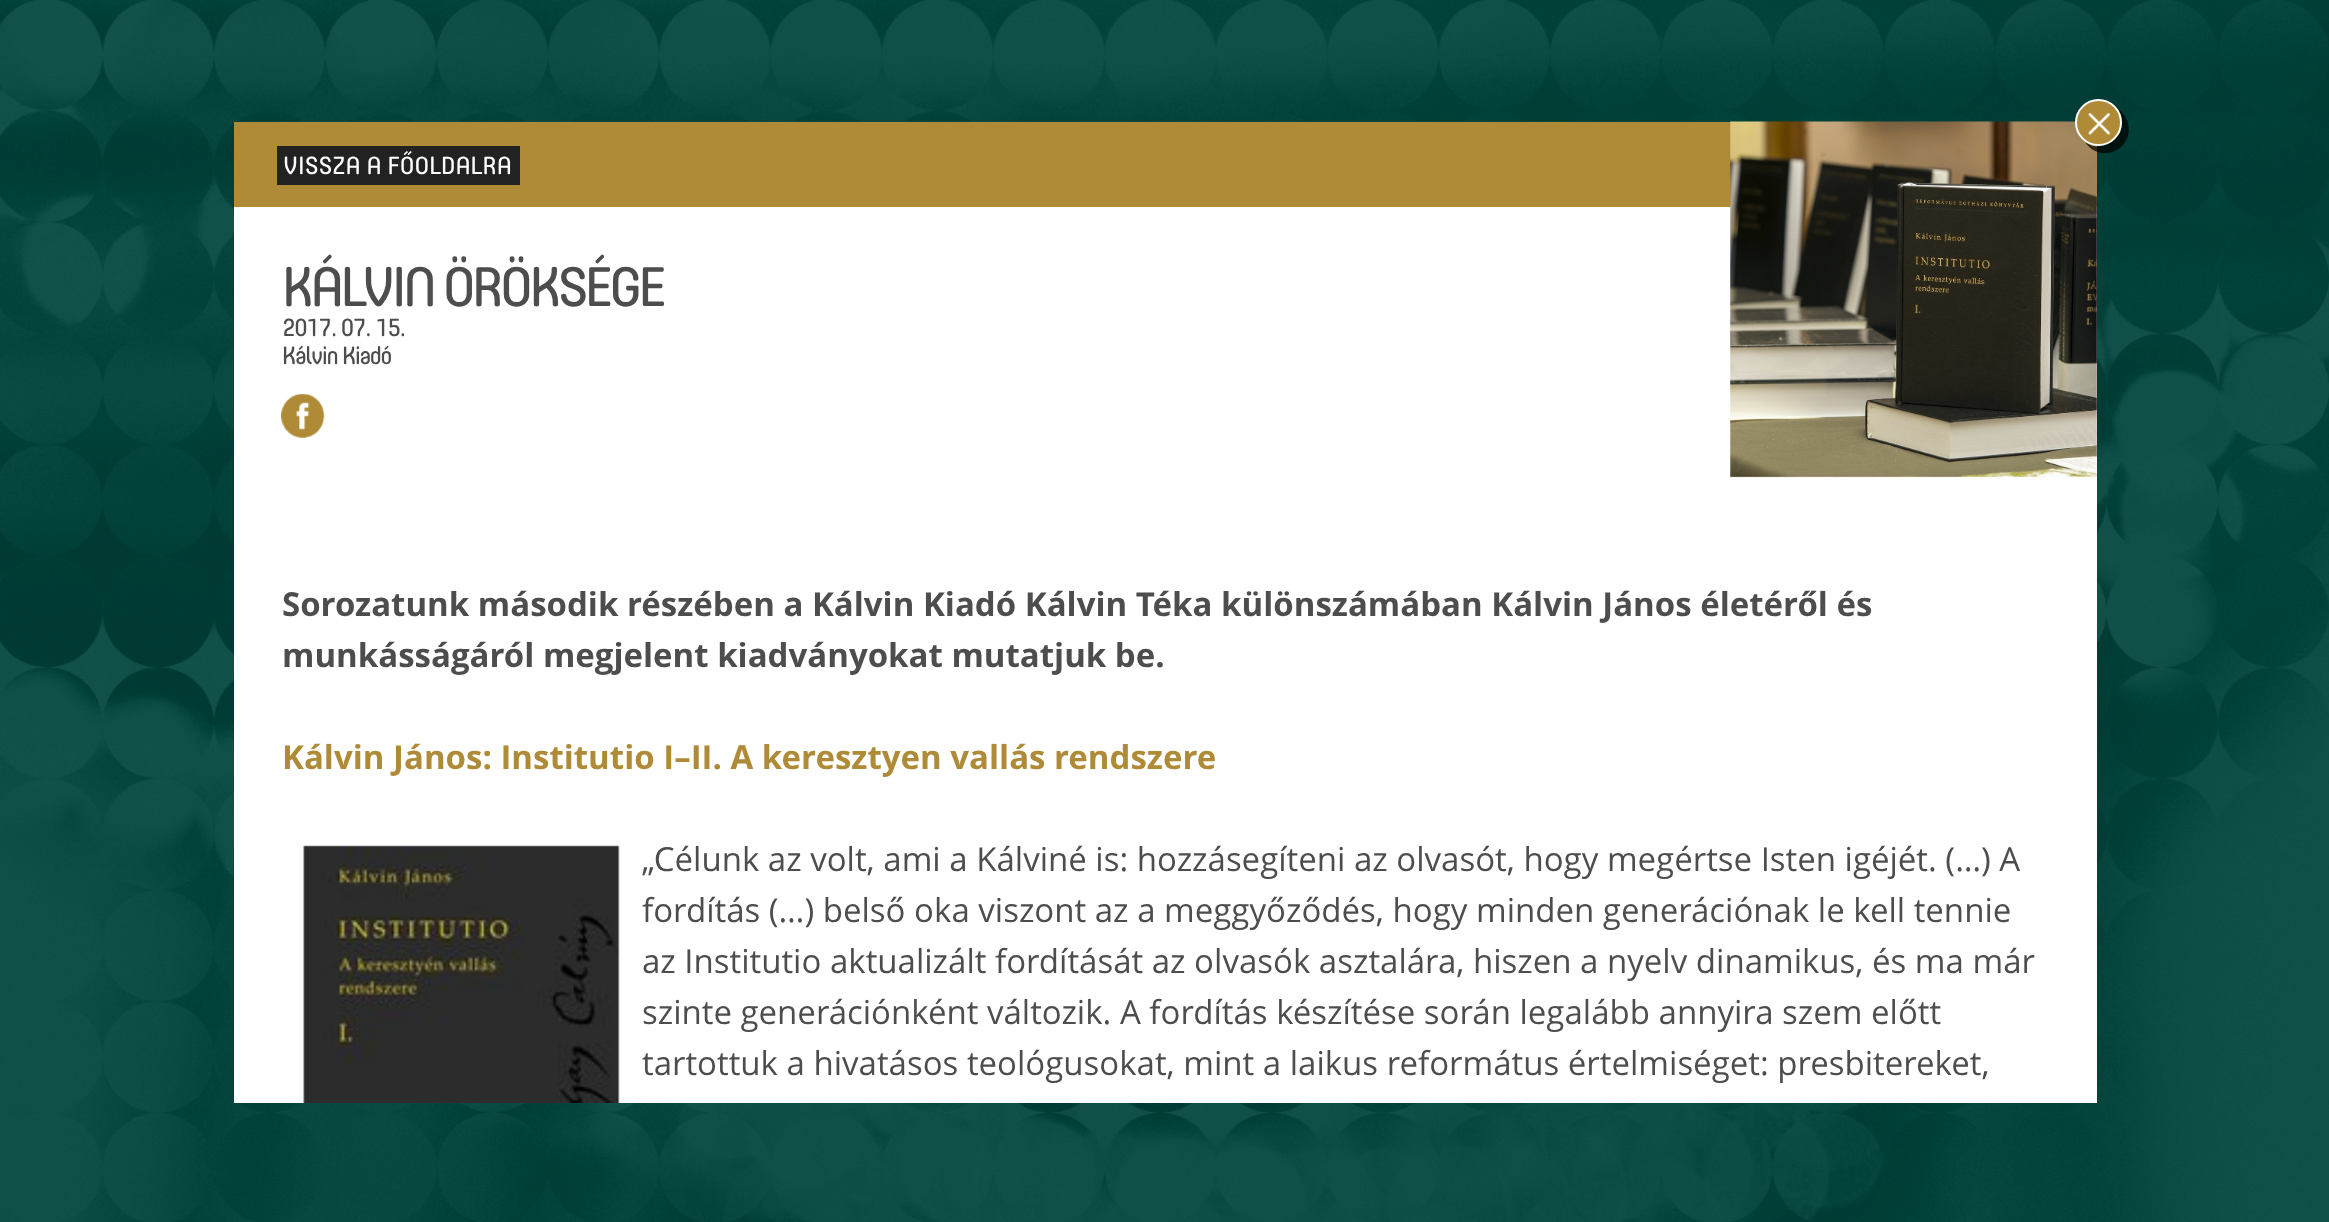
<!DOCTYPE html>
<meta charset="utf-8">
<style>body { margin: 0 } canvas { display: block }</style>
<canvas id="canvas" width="2329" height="1222"></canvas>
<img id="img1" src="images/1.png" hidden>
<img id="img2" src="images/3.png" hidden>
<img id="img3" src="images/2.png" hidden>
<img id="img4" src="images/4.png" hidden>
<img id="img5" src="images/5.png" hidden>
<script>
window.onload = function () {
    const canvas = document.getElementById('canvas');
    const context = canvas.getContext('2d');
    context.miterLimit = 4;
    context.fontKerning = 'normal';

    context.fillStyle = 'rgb(255, 255, 255)';
    context.fillRect(0, 0, 2329, 1222);
    context.drawImage(document.getElementById('img1'), 0, 0, 2329, 1222);
    context.fillRect(234, 207, 1863, 896);
    context.fillStyle = 'rgb(175, 139, 55)';
    context.fillRect(234, 122, 1863, 85);
    context.drawImage(document.getElementById('img2'), 1730, 121, 367, 357);
    context.fillStyle = 'rgba(0, 0, 0, 0.7)';
    context.beginPath();
    context.moveTo(2085, 142);
    context.bezierCurveTo(2093, 155, 2111, 157, 2122, 146);
    context.bezierCurveTo(2133, 135, 2130, 117, 2118, 109);
    context.bezierCurveTo(2132, 131, 2106, 157, 2085, 142);
    context.closePath();
    context.fill();
    context.fillStyle = 'rgb(175, 139, 55)';
    context.beginPath();
    context.arc(2098.5, 122.5, 22.5, 0, 2 * Math.PI);
    context.fill();
    context.strokeStyle = 'rgb(255, 255, 255)';
    context.lineWidth = 2;
    context.stroke();
    context.drawImage(document.getElementById('img3'), 2088, 113, 22, 22);
    context.fillStyle = 'rgb(34, 34, 34)';
    context.fillRect(277, 146, 243, 39);
    context.drawImage(document.getElementById('img4'), 281, 394, 44, 45);
    context.drawImage(document.getElementById('img5'), 303, 845, 317, 258);
    context.font = '24.5px "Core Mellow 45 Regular"';
    context.fillStyle = 'rgb(255, 255, 255)';
    context.fillText('VISSZA A FŐOLDALRA', 283, 174);
    context.letterSpacing = '-3.7px';
    context.font = '55px "Core Mellow 45 Regular"';
    context.fillStyle = 'rgb(77, 77, 77)';
    context.fillText('KÁLVIN ÖRÖKSÉGE', 282, 306);
    context.letterSpacing = '-1.25px';
    context.font = '24.5px "Core Mellow 45 Regular"';
    context.fillText('2017. 07. 15.', 282, 336);
    context.fillText('Kálvin Kiadó', 282, 364);
    context.letterSpacing = '0px';
    context.font = 'bold 33px Open Sans';
    context.fillText('Sorozatunk második részében a Kálvin Kiadó Kálvin Téka különszámában Kálvin János életéről és', 282, 616);
    context.fillText('munkásságáról megjelent kiadványokat mutatjuk be.', 282, 667);
    context.fillStyle = 'rgb(175, 139, 55)';
    context.fillText('Kálvin János: Institutio I–II. A keresztyen vallás rendszere', 282, 769);
    context.font = '33px Open Sans';
    context.fillStyle = 'rgb(77, 77, 77)';
    context.fillText('„Célunk az volt, ami a Kálviné is: hozzásegíteni az olvasót, hogy megértse Isten igéjét. (…) A', 642, 871);
    context.fillText('fordítás (…) belső oka viszont az a meggyőződés, hogy minden generációnak le kell tennie', 642, 922);
    context.fillText('az Institutio aktualizált fordítását az olvasók asztalára, hiszen a nyelv dinamikus, és ma már', 642, 973);
    context.fillText('szinte generációnként változik. A fordítás készítése során legalább annyira szem előtt', 642, 1024);
    context.fillText('tartottuk a hivatásos teológusokat, mint a laikus református értelmiséget: presbitereket,', 642, 1075);
};
</script>
